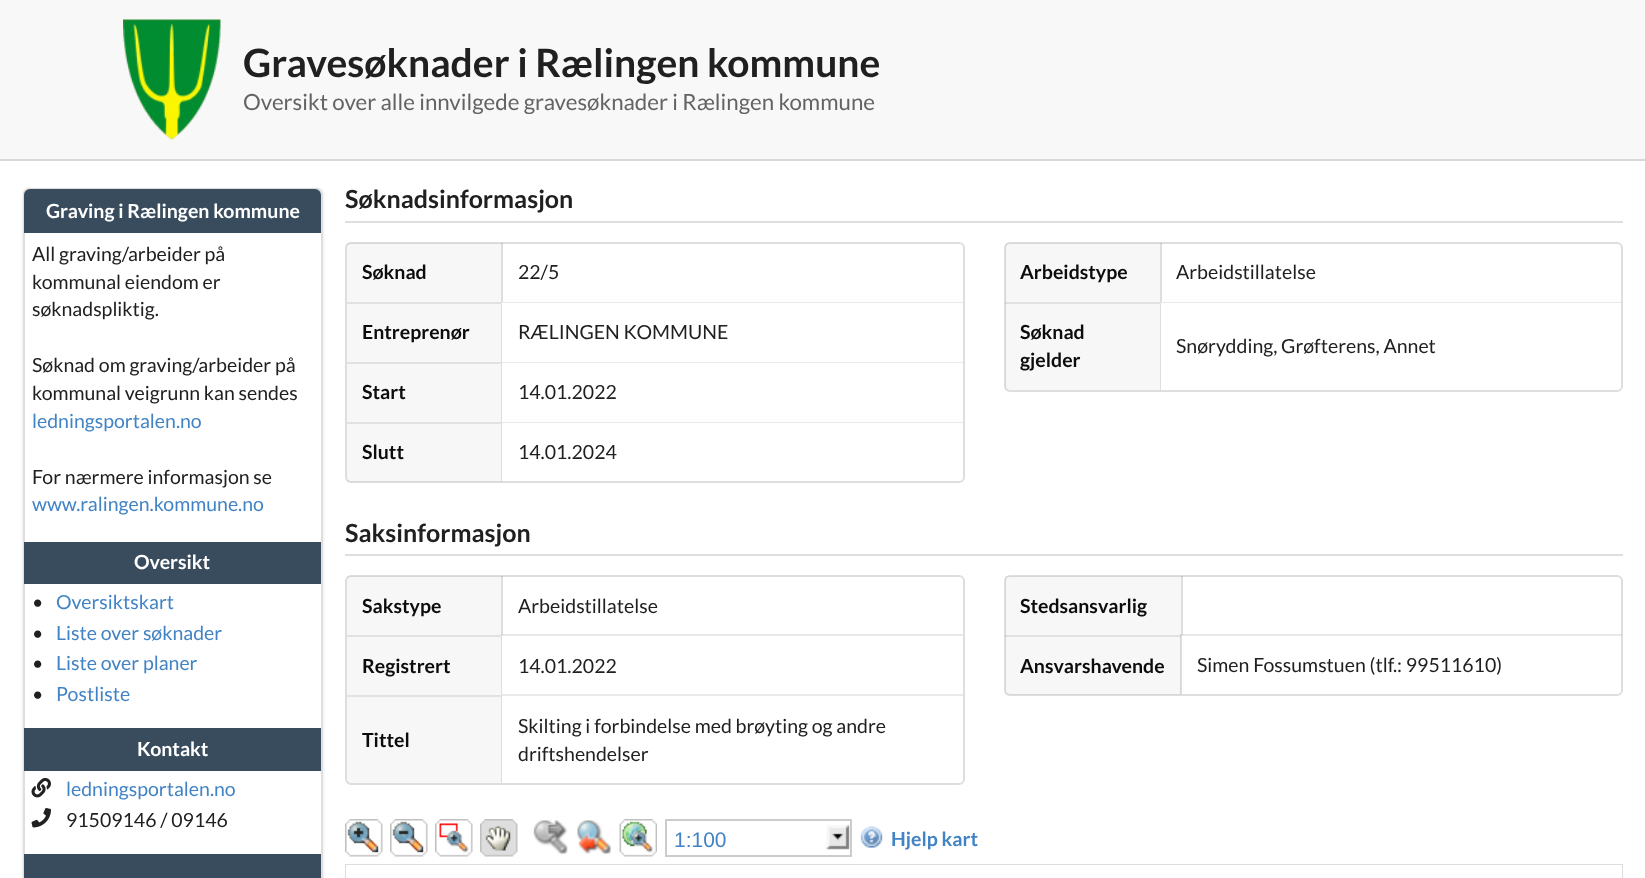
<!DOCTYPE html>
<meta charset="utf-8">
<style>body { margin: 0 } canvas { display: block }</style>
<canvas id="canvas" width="1645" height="878"></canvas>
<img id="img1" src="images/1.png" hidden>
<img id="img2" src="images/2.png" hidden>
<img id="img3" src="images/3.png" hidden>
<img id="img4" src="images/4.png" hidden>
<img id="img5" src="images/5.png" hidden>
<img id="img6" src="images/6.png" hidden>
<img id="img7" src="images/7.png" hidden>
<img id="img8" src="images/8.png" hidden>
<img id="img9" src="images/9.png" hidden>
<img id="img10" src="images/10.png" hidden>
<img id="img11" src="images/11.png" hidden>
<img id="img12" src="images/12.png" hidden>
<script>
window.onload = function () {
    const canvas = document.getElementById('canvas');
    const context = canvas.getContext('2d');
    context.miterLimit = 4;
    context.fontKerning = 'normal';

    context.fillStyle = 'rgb(255, 255, 255)';
    context.fillRect(0, 0, 1645, 878);
    context.fillStyle = 'rgb(248, 248, 248)';
    context.fillRect(0, 0, 1645, 159);
    context.fillStyle = 'rgb(216, 216, 217)';
    context.fillRect(0, 159, 1645, 2);
    context.drawImage(document.getElementById('img1'), 123, 19, 98, 121);
    context.fillStyle = 'rgba(34, 36, 38, 0.15)';
    context.filter = 'blur(1.5px)';
    context.beginPath();
    context.roundRect(23, 189, 300, 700, 6);
    context.fill();
    context.filter = 'none';
    context.fillStyle = 'rgb(255, 255, 255)';
    context.beginPath();
    context.roundRect(24, 189, 298, 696, 5);
    context.fill();
    context.strokeStyle = 'rgb(222, 222, 222)';
    context.lineWidth = 2;
    context.stroke();
    context.fillStyle = 'rgb(56, 76, 94)';
    context.beginPath();
    context.roundRect(24, 189, 297, 44, [6, 6, 0, 0]);
    context.fill();
    context.fillRect(24, 542, 297, 42);
    context.fillRect(24, 728, 297, 43);
    context.drawImage(document.getElementById('img2'), 31, 777, 20, 21);
    context.drawImage(document.getElementById('img3'), 31, 808, 20, 20);
    context.fillRect(24, 854, 297, 24);
    context.fillStyle = 'rgb(222, 222, 222)';
    context.fillRect(345, 221, 1278, 2);
    context.beginPath();
    context.roundRect(346, 243, 618, 239, 5);
    context.stroke();
    context.fillStyle = 'rgba(0, 0, 0, 0.03)';
    context.fillRect(347, 243, 154, 59);
    context.fillStyle = 'rgba(34, 36, 38, 0.15)';
    context.fillRect(501, 243, 2, 59);
    context.fillStyle = 'rgb(247, 247, 247)';
    context.fillRect(347, 304, 154, 58);
    context.fillStyle = 'rgb(226, 226, 226)';
    context.fillRect(347, 302, 154, 2);
    context.fillStyle = 'rgb(233, 233, 233)';
    context.beginPath();
    context.moveTo(501, 302);
    context.lineTo(963, 302);
    context.lineTo(963, 303);
    context.lineTo(502, 303);
    context.closePath();
    context.fill();
    context.fillStyle = 'rgba(34, 36, 38, 0.15)';
    context.beginPath();
    context.moveTo(501, 362);
    context.lineTo(501, 302);
    context.lineTo(502, 303);
    context.lineTo(502, 362);
    context.closePath();
    context.fill();
    context.fillStyle = 'rgb(247, 247, 247)';
    context.fillRect(347, 364, 154, 58);
    context.fillStyle = 'rgb(226, 226, 226)';
    context.fillRect(347, 362, 154, 2);
    context.fillStyle = 'rgb(233, 233, 233)';
    context.beginPath();
    context.moveTo(501, 362);
    context.lineTo(963, 362);
    context.lineTo(963, 363);
    context.lineTo(502, 363);
    context.closePath();
    context.fill();
    context.fillStyle = 'rgba(34, 36, 38, 0.15)';
    context.beginPath();
    context.moveTo(501, 422);
    context.lineTo(501, 362);
    context.lineTo(502, 363);
    context.lineTo(502, 422);
    context.closePath();
    context.fill();
    context.fillStyle = 'rgba(0, 0, 0, 0.03)';
    context.fillRect(347, 424, 154, 58);
    context.fillStyle = 'rgb(226, 226, 226)';
    context.fillRect(347, 422, 154, 2);
    context.fillStyle = 'rgb(233, 233, 233)';
    context.beginPath();
    context.moveTo(501, 422);
    context.lineTo(963, 422);
    context.lineTo(963, 423);
    context.lineTo(502, 423);
    context.closePath();
    context.fill();
    context.fillStyle = 'rgba(34, 36, 38, 0.15)';
    context.beginPath();
    context.moveTo(501, 482);
    context.lineTo(501, 422);
    context.lineTo(502, 423);
    context.lineTo(502, 482);
    context.closePath();
    context.fill();
    context.beginPath();
    context.roundRect(1005, 243, 617, 148, 5);
    context.stroke();
    context.fillStyle = 'rgba(0, 0, 0, 0.03)';
    context.fillRect(1005, 243, 155, 59);
    context.fillStyle = 'rgba(34, 36, 38, 0.15)';
    context.fillRect(1160, 243, 2, 59);
    context.fillStyle = 'rgba(0, 0, 0, 0.03)';
    context.fillRect(1005, 302, 155, 88);
    context.fillStyle = 'rgba(34, 36, 38, 0.1)';
    context.fillRect(1005, 302, 155, 2);
    context.beginPath();
    context.moveTo(1160, 302);
    context.lineTo(1622, 302);
    context.lineTo(1622, 303);
    context.lineTo(1161, 303);
    context.closePath();
    context.fill();
    context.fillStyle = 'rgba(34, 36, 38, 0.15)';
    context.beginPath();
    context.moveTo(1160, 390);
    context.lineTo(1160, 302);
    context.lineTo(1161, 303);
    context.lineTo(1161, 390);
    context.closePath();
    context.fill();
    context.fillStyle = 'rgb(222, 222, 222)';
    context.fillRect(345, 554, 1278, 2);
    context.beginPath();
    context.roundRect(346, 576, 618, 208, 5);
    context.stroke();
    context.fillStyle = 'rgba(0, 0, 0, 0.03)';
    context.fillRect(347, 576, 154, 59);
    context.fillStyle = 'rgba(34, 36, 38, 0.15)';
    context.fillRect(501, 576, 2, 59);
    context.fillStyle = 'rgb(247, 247, 247)';
    context.fillRect(347, 637, 154, 58);
    context.fillStyle = 'rgb(226, 226, 226)';
    context.fillRect(347, 635, 154, 2);
    context.fillStyle = 'rgba(34, 36, 38, 0.1)';
    context.beginPath();
    context.moveTo(501, 634);
    context.lineTo(963, 634);
    context.lineTo(963, 636);
    context.lineTo(502, 636);
    context.closePath();
    context.fill();
    context.fillStyle = 'rgba(34, 36, 38, 0.15)';
    context.beginPath();
    context.moveTo(501, 694);
    context.lineTo(501, 634);
    context.lineTo(502, 636);
    context.lineTo(502, 694);
    context.closePath();
    context.fill();
    context.fillStyle = 'rgba(0, 0, 0, 0.03)';
    context.fillRect(347, 697, 154, 86);
    context.fillStyle = 'rgb(226, 226, 226)';
    context.fillRect(347, 695, 154, 2);
    context.fillStyle = 'rgb(233, 233, 233)';
    context.beginPath();
    context.moveTo(501, 694);
    context.lineTo(963, 694);
    context.lineTo(963, 696);
    context.lineTo(502, 696);
    context.closePath();
    context.fill();
    context.fillStyle = 'rgba(34, 36, 38, 0.15)';
    context.beginPath();
    context.moveTo(501, 783);
    context.lineTo(501, 694);
    context.lineTo(502, 696);
    context.lineTo(502, 783);
    context.closePath();
    context.fill();
    context.beginPath();
    context.roundRect(1005, 576, 617, 119, 5);
    context.stroke();
    context.fillStyle = 'rgba(0, 0, 0, 0.03)';
    context.fillRect(1005, 576, 176, 59);
    context.fillStyle = 'rgba(34, 36, 38, 0.15)';
    context.fillRect(1181, 576, 2, 59);
    context.fillStyle = 'rgba(0, 0, 0, 0.03)';
    context.fillRect(1005, 635, 176, 60);
    context.fillStyle = 'rgba(34, 36, 38, 0.1)';
    context.fillRect(1005, 635, 176, 2);
    context.beginPath();
    context.moveTo(1180, 634);
    context.lineTo(1622, 634);
    context.lineTo(1622, 636);
    context.lineTo(1182, 636);
    context.closePath();
    context.fill();
    context.fillStyle = 'rgba(34, 36, 38, 0.15)';
    context.beginPath();
    context.moveTo(1180, 694);
    context.lineTo(1180, 634);
    context.lineTo(1182, 636);
    context.lineTo(1182, 694);
    context.closePath();
    context.fill();
    context.drawImage(document.getElementById('img4'), 345, 819, 38, 38);
    context.drawImage(document.getElementById('img5'), 390, 819, 38, 38);
    context.drawImage(document.getElementById('img6'), 435, 819, 38, 38);
    context.drawImage(document.getElementById('img7'), 480, 819, 38, 38);
    context.drawImage(document.getElementById('img8'), 533, 820, 35, 34);
    context.drawImage(document.getElementById('img9'), 577, 820, 34, 34);
    context.drawImage(document.getElementById('img10'), 619, 819, 38, 38);
    context.drawImage(document.getElementById('img11'), 826, 824, 24, 26);
    context.strokeStyle = 'rgb(204, 204, 204)';
    context.strokeRect(666, 820, 185, 36);
    context.drawImage(document.getElementById('img12'), 860, 826, 23, 22);
    context.strokeStyle = 'rgb(222, 222, 222)';
    context.strokeRect(346, 865, 1276, 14);
    context.fillStyle = 'rgb(255, 255, 255)';
    context.fillRect(346, 865, 269, 13);
    context.fillRect(615, 865, 768, 1);
    context.fillRect(1383, 865, 239, 13);
    context.font = 'bold 39px Lato';
    context.fillStyle = 'rgb(32, 32, 32)';
    context.fillText('Gravesøknader i Rælingen kommune', 243, 77);
    context.font = '22.3px Lato';
    context.fillStyle = 'rgb(99, 99, 99)';
    context.fillText('Oversikt over alle innvilgede gravesøknader i Rælingen kommune', 243, 110);
    context.font = 'bold 19.5px Lato';
    context.fillStyle = 'rgb(255, 255, 255)';
    context.fillText('Graving i Rælingen kommune', 46, 218);
    context.font = '19.5px Lato';
    context.fillStyle = 'rgb(32, 32, 32)';
    context.fillText('All graving/arbeider på', 32, 261);
    context.fillText('kommunal eiendom er', 32, 289);
    context.fillText('søknadspliktig.', 32, 316);
    context.fillText('Søknad om graving/arbeider på', 32, 372);
    context.fillText('kommunal veigrunn kan sendes', 32, 400);
    context.fillStyle = 'rgb(65, 131, 196)';
    context.fillText('ledningsportalen.no', 32, 428);
    context.fillStyle = 'rgb(32, 32, 32)';
    context.fillText('For nærmere informasjon se', 32, 484);
    context.fillStyle = 'rgb(65, 131, 196)';
    context.fillText('www.ralingen.kommune.no', 32, 511);
    context.font = 'bold 19.5px Lato';
    context.fillStyle = 'rgb(255, 255, 255)';
    context.fillText('Oversikt', 134, 569);
    context.font = '19.5px Lato';
    context.fillStyle = 'rgb(32, 32, 32)';
    context.fillText('•', 32, 609);
    context.fillStyle = 'rgb(65, 131, 196)';
    context.fillText('Oversiktskart', 56, 609);
    context.fillStyle = 'rgb(32, 32, 32)';
    context.fillText('•', 32, 640);
    context.fillStyle = 'rgb(65, 131, 196)';
    context.fillText('Liste over søknader', 56, 640);
    context.fillStyle = 'rgb(32, 32, 32)';
    context.fillText('•', 32, 670);
    context.fillStyle = 'rgb(65, 131, 196)';
    context.fillText('Liste over planer', 56, 670);
    context.fillStyle = 'rgb(32, 32, 32)';
    context.fillText('•', 32, 701);
    context.fillStyle = 'rgb(65, 131, 196)';
    context.fillText('Postliste', 56, 701);
    context.font = 'bold 19.5px Lato';
    context.fillStyle = 'rgb(255, 255, 255)';
    context.fillText('Kontakt', 137, 756);
    context.font = '19.5px Lato';
    context.fillStyle = 'rgb(65, 131, 196)';
    context.fillText('ledningsportalen.no', 66, 796);
    context.fillStyle = 'rgb(32, 32, 32)';
    context.fillText('91509146 / 09146', 66, 827);
    context.font = 'bold 25px Lato';
    context.fillText('Søknadsinformasjon', 345, 208);
    context.font = 'bold 19.5px Lato';
    context.fillStyle = 'rgb(12, 12, 12)';
    context.fillText('Søknad', 362, 279);
    context.font = '19.5px Lato';
    context.fillStyle = 'rgb(32, 32, 32)';
    context.fillText('22/5', 518, 279);
    context.font = 'bold 19.5px Lato';
    context.fillStyle = 'rgb(12, 12, 12)';
    context.fillText('Entreprenør', 362, 339);
    context.font = '19.5px Lato';
    context.fillStyle = 'rgb(32, 32, 32)';
    context.fillText('RÆLINGEN KOMMUNE', 518, 339);
    context.font = 'bold 19.5px Lato';
    context.fillStyle = 'rgb(12, 12, 12)';
    context.fillText('Start', 362, 399);
    context.font = '19.5px Lato';
    context.fillStyle = 'rgb(32, 32, 32)';
    context.fillText('14.01.2022', 518, 399);
    context.font = 'bold 19.5px Lato';
    context.fillStyle = 'rgb(12, 12, 12)';
    context.fillText('Slutt', 362, 459);
    context.font = '19.5px Lato';
    context.fillStyle = 'rgb(32, 32, 32)';
    context.fillText('14.01.2024', 518, 459);
    context.font = 'bold 19.5px Lato';
    context.fillStyle = 'rgb(12, 12, 12)';
    context.fillText('Arbeidstype', 1020, 279);
    context.font = '19.5px Lato';
    context.fillStyle = 'rgb(32, 32, 32)';
    context.fillText('Arbeidstillatelse', 1176, 279);
    context.font = 'bold 19.5px Lato';
    context.fillStyle = 'rgb(12, 12, 12)';
    context.fillText('Søknad', 1020, 339);
    context.fillText('gjelder', 1020, 367);
    context.font = '19.5px Lato';
    context.fillStyle = 'rgb(32, 32, 32)';
    context.fillText('Snørydding, Grøfterens, Annet', 1176, 353);
    context.font = 'bold 25px Lato';
    context.fillText('Saksinformasjon', 345, 542);
    context.font = 'bold 19.5px Lato';
    context.fillStyle = 'rgb(12, 12, 12)';
    context.fillText('Sakstype', 362, 613);
    context.font = '19.5px Lato';
    context.fillStyle = 'rgb(32, 32, 32)';
    context.fillText('Arbeidstillatelse', 518, 613);
    context.font = 'bold 19.5px Lato';
    context.fillStyle = 'rgb(12, 12, 12)';
    context.fillText('Registrert', 362, 673);
    context.font = '19.5px Lato';
    context.fillStyle = 'rgb(32, 32, 32)';
    context.fillText('14.01.2022', 518, 673);
    context.font = 'bold 19.5px Lato';
    context.fillStyle = 'rgb(12, 12, 12)';
    context.fillText('Tittel', 362, 747);
    context.font = '19.5px Lato';
    context.fillStyle = 'rgb(32, 32, 32)';
    context.fillText('Skilting i forbindelse med brøyting og andre', 518, 733);
    context.fillText('driftshendelser', 518, 761);
    context.font = 'bold 19.5px Lato';
    context.fillStyle = 'rgb(12, 12, 12)';
    context.fillText('Stedsansvarlig', 1020, 613);
    context.fillText('Ansvarshavende', 1020, 673);
    context.font = '19.5px Lato';
    context.fillStyle = 'rgb(32, 32, 32)';
    context.fillText('Simen Fossumstuen (tlf.: 99511610)', 1197, 672);
    context.font = '21px Liberation Sans';
    context.fillStyle = 'rgb(65, 131, 196)';
    context.fillText('1:100', 674, 847);
    context.font = 'bold 19.5px Lato';
    context.fillText('Hjelp kart', 891, 846);
};
</script>
